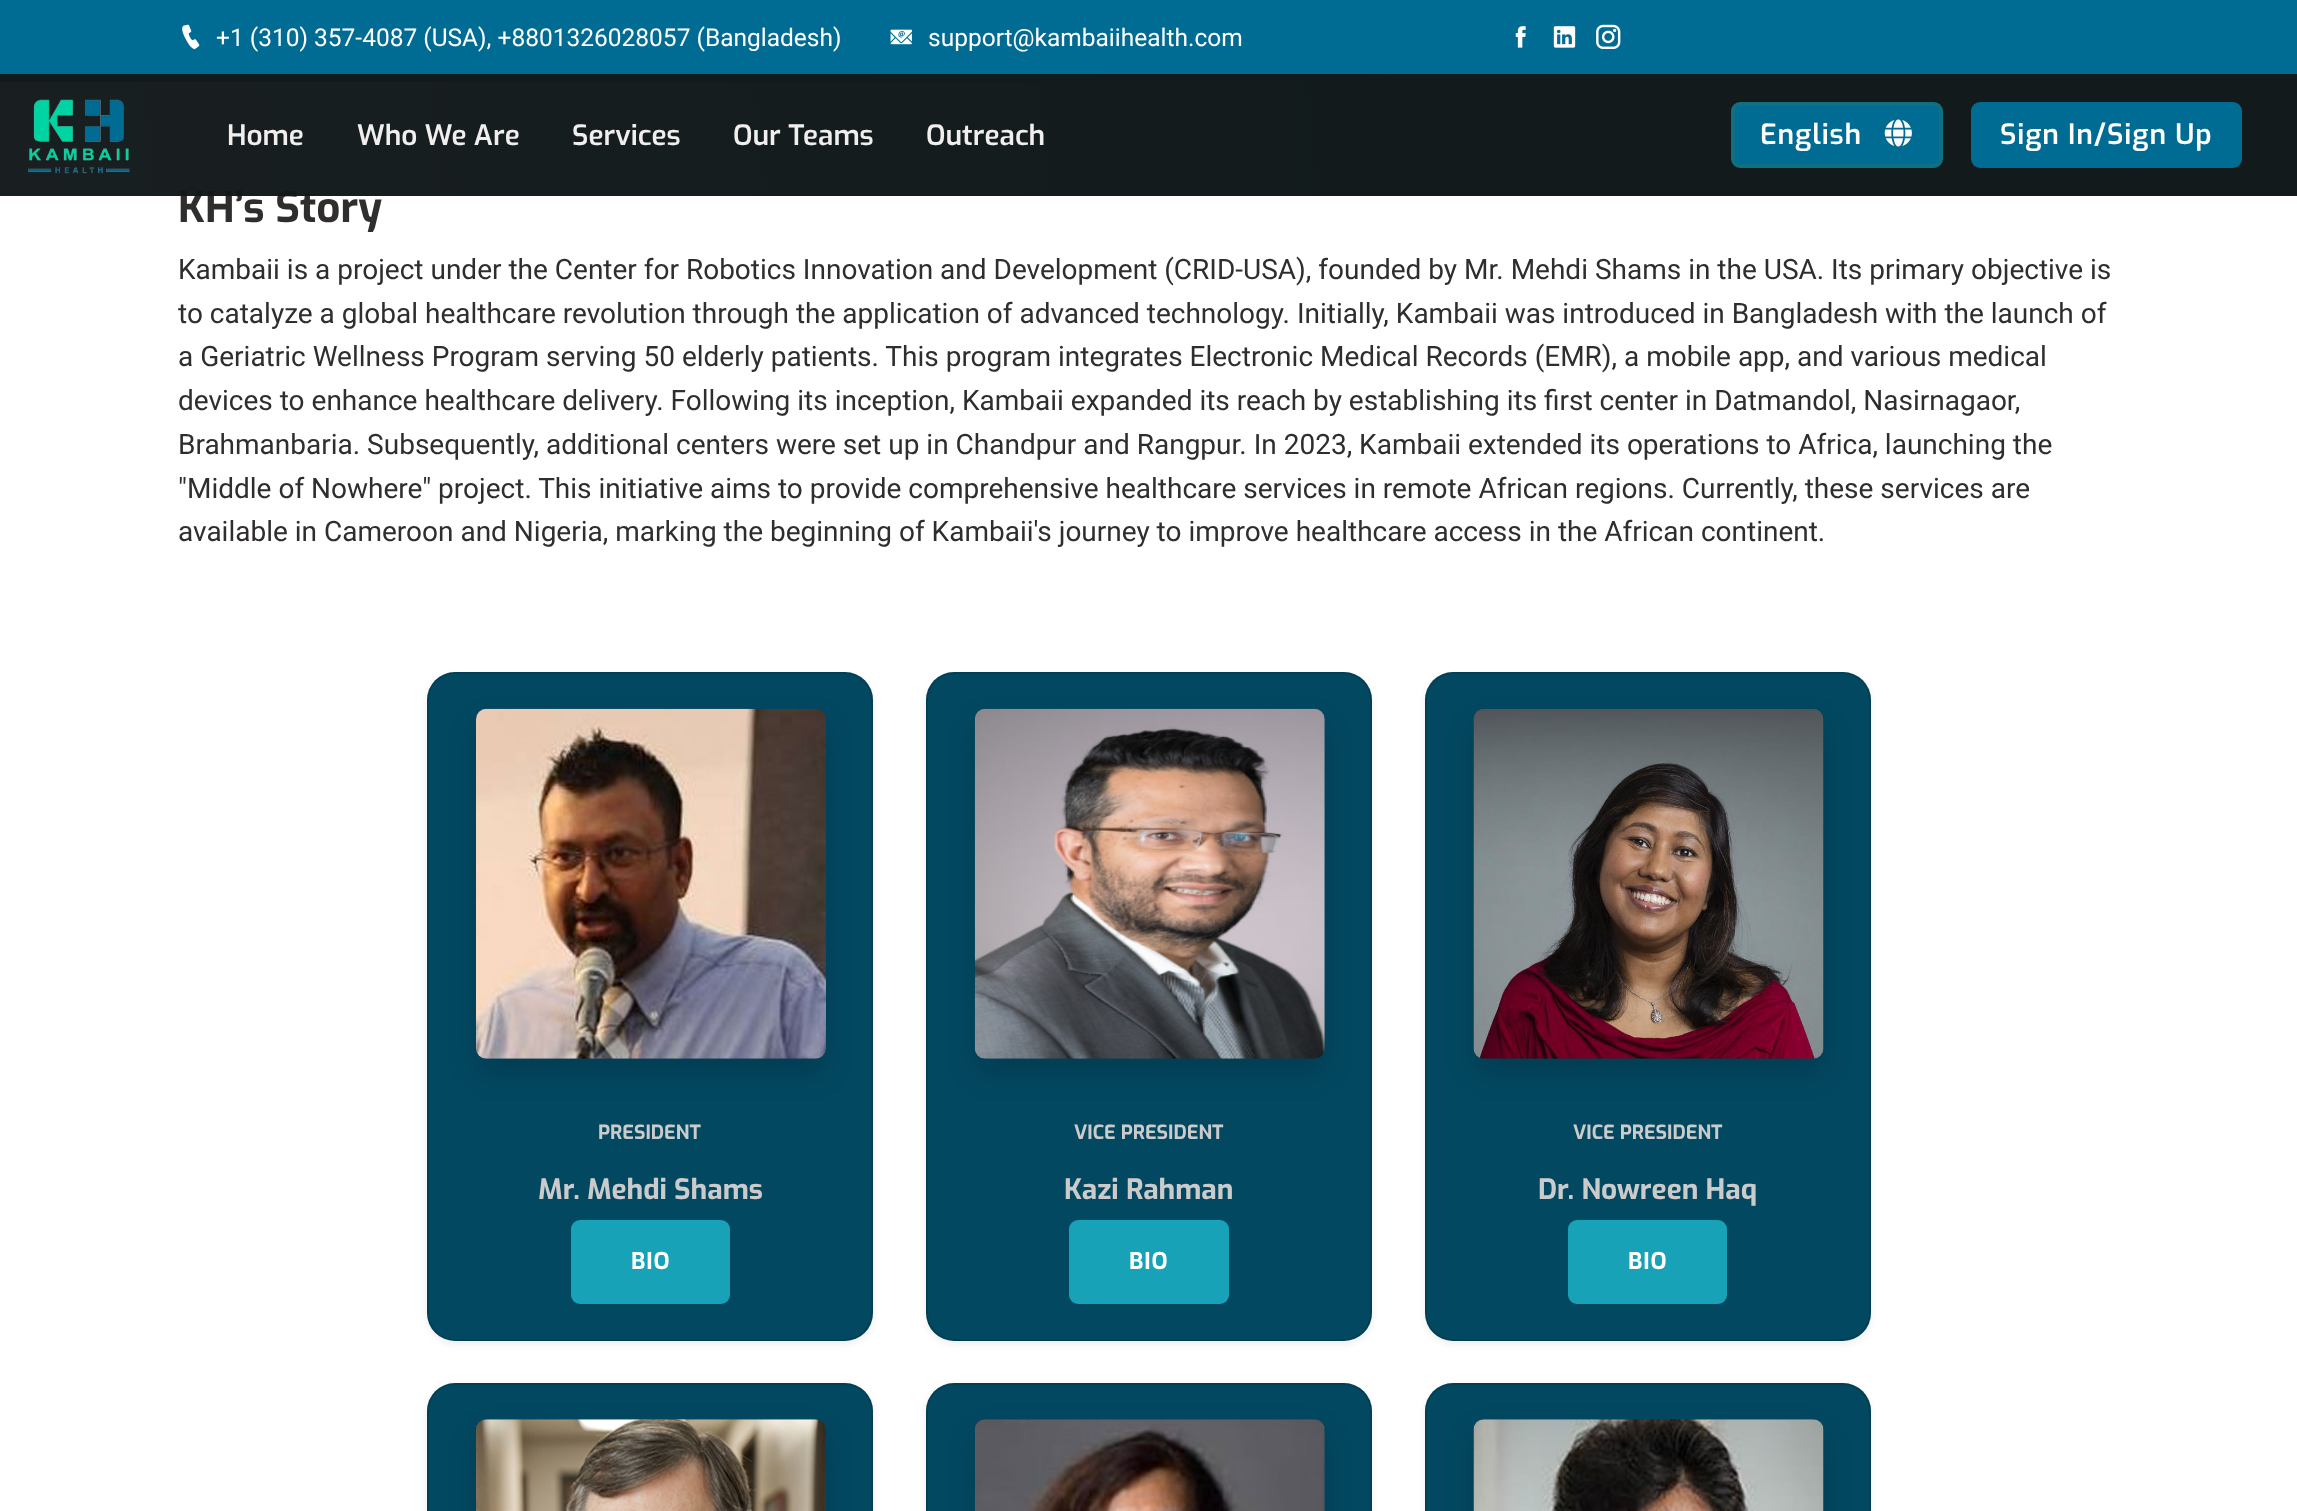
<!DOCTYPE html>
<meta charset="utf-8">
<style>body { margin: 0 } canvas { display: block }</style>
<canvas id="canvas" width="2297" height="1511"></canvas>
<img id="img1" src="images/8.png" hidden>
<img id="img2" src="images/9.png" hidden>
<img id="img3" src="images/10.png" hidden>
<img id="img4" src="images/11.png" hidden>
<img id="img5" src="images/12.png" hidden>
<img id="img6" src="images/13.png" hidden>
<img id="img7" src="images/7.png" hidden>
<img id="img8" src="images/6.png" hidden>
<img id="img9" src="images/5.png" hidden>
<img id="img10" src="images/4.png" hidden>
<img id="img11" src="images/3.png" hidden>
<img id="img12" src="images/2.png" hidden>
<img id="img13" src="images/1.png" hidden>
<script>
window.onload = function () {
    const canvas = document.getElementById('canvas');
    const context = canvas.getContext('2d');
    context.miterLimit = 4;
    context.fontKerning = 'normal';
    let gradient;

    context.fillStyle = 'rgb(255, 255, 255)';
    context.fillRect(0, 0, 2297, 1511);
    context.fillStyle = 'rgb(26, 123, 158)';
    context.fillRect(0, 74, 1429, 8);
    context.fillStyle = 'rgba(0, 0, 0, 0.07)';
    context.filter = 'blur(3.5px)';
    context.beginPath();
    context.roundRect(427, 676, 446, 668, 28);
    context.fill();
    context.filter = 'none';
    context.fillStyle = 'rgb(3, 72, 97)';
    context.beginPath();
    context.roundRect(427, 672, 446, 669, 28);
    context.fill();
    context.beginPath();
    context.roundRect(428, 673, 444, 667, 27);
    context.strokeStyle = 'rgba(0, 0, 0, 0.12)';
    context.lineWidth = 2;
    context.stroke();
    context.fillStyle = 'rgba(0, 0, 0, 0.15)';
    context.filter = 'blur(14px)';
    context.beginPath();
    context.roundRect(476, 723, 350, 350, 11);
    context.fill();
    context.filter = 'none';
    context.drawImage(document.getElementById('img1'), 476, 708, 350, 351);
    context.fillStyle = 'rgb(23, 162, 184)';
    context.beginPath();
    context.roundRect(571, 1220, 159, 84, 9);
    context.fill();
    context.fillStyle = 'rgba(0, 0, 0, 0.07)';
    context.filter = 'blur(3.5px)';
    context.beginPath();
    context.roundRect(926, 676, 446, 668, 28);
    context.fill();
    context.filter = 'none';
    context.fillStyle = 'rgb(3, 72, 97)';
    context.beginPath();
    context.roundRect(926, 672, 446, 669, 28);
    context.fill();
    context.beginPath();
    context.roundRect(927, 673, 444, 667, 27);
    context.stroke();
    context.fillStyle = 'rgba(0, 0, 0, 0.15)';
    context.filter = 'blur(14px)';
    context.beginPath();
    context.roundRect(975, 723, 350, 350, 11);
    context.fill();
    context.filter = 'none';
    context.drawImage(document.getElementById('img2'), 974, 708, 351, 351);
    context.fillStyle = 'rgb(23, 162, 184)';
    context.beginPath();
    context.roundRect(1069, 1220, 160, 84, 9);
    context.fill();
    context.fillStyle = 'rgba(0, 0, 0, 0.07)';
    context.filter = 'blur(3.5px)';
    context.beginPath();
    context.roundRect(1425, 676, 446, 668, 28);
    context.fill();
    context.filter = 'none';
    context.fillStyle = 'rgb(3, 72, 97)';
    context.beginPath();
    context.roundRect(1425, 672, 446, 669, 28);
    context.fill();
    context.beginPath();
    context.roundRect(1426, 673, 444, 667, 27);
    context.stroke();
    context.fillStyle = 'rgba(0, 0, 0, 0.15)';
    context.filter = 'blur(14px)';
    context.beginPath();
    context.roundRect(1474, 723, 350, 350, 11);
    context.fill();
    context.filter = 'none';
    context.drawImage(document.getElementById('img3'), 1473, 708, 351, 351);
    context.fillStyle = 'rgb(23, 162, 184)';
    context.beginPath();
    context.roundRect(1568, 1220, 159, 84, 9);
    context.fill();
    context.fillStyle = 'rgba(0, 0, 0, 0.07)';
    context.filter = 'blur(3.5px)';
    context.beginPath();
    context.roundRect(427, 1386, 446, 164, 28);
    context.fill();
    context.filter = 'none';
    context.fillStyle = 'rgb(3, 72, 97)';
    context.beginPath();
    context.roundRect(427, 1383, 446, 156, 28);
    context.fill();
    context.beginPath();
    context.roundRect(428, 1384, 444, 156, 27);
    context.stroke();
    context.fillStyle = 'rgba(0, 0, 0, 0.15)';
    context.filter = 'blur(14px)';
    context.beginPath();
    context.roundRect(476, 1433, 350, 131, 11);
    context.fill();
    context.filter = 'none';
    context.drawImage(document.getElementById('img4'), 476, 1419, 350, 92);
    context.fillStyle = 'rgba(0, 0, 0, 0.07)';
    context.filter = 'blur(3.5px)';
    context.beginPath();
    context.roundRect(926, 1386, 446, 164, 28);
    context.fill();
    context.filter = 'none';
    context.fillStyle = 'rgb(3, 72, 97)';
    context.beginPath();
    context.roundRect(926, 1383, 446, 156, 28);
    context.fill();
    context.beginPath();
    context.roundRect(927, 1384, 444, 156, 27);
    context.stroke();
    context.fillStyle = 'rgba(0, 0, 0, 0.15)';
    context.filter = 'blur(14px)';
    context.beginPath();
    context.roundRect(975, 1433, 350, 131, 11);
    context.fill();
    context.filter = 'none';
    context.drawImage(document.getElementById('img5'), 974, 1419, 351, 92);
    context.fillStyle = 'rgba(0, 0, 0, 0.07)';
    context.filter = 'blur(3.5px)';
    context.beginPath();
    context.roundRect(1425, 1386, 446, 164, 28);
    context.fill();
    context.filter = 'none';
    context.fillStyle = 'rgb(3, 72, 97)';
    context.beginPath();
    context.roundRect(1425, 1383, 446, 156, 28);
    context.fill();
    context.beginPath();
    context.roundRect(1426, 1384, 444, 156, 27);
    context.stroke();
    context.fillStyle = 'rgba(0, 0, 0, 0.15)';
    context.filter = 'blur(14px)';
    context.beginPath();
    context.roundRect(1474, 1433, 350, 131, 11);
    context.fill();
    context.filter = 'none';
    context.drawImage(document.getElementById('img6'), 1473, 1419, 351, 92);
    context.font = 'bold 42px Exo';
    context.fillStyle = 'rgb(48, 45, 45)';
    context.fillText('KH’s Story', 178, 222);
    gradient = context.createLinearGradient(2295, -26, -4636, 724);
    gradient.addColorStop(0.12, 'rgb(50, 107, 118)');
    gradient.addColorStop(1, 'rgba(50, 107, 118, 0)');
    context.fillStyle = gradient;
    context.fillRect(0, 74, 2297, 122);
    context.fillStyle = 'rgba(0, 0, 0, 0.05)';
    context.filter = 'blur(2px)';
    context.beginPath();
    context.rect(0, 2, 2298, 73);
    context.fill();
    context.filter = 'none';
    context.fillStyle = 'rgba(13, 13, 13, 0.86)';
    context.fillRect(0, 74, 2297, 122);
    context.fillStyle = 'rgb(1, 108, 147)';
    context.beginPath();
    context.roundRect(1733, 104, 208, 62, 7);
    context.fill();
    context.strokeStyle = 'rgb(16, 112, 127)';
    context.lineWidth = 4;
    context.stroke();
    context.drawImage(document.getElementById('img7'), 1884, 119, 28, 28);
    context.letterSpacing = '0.9px';
    context.font = '600 28px Exo';
    context.fillStyle = 'rgb(255, 255, 255)';
    context.fillText('English', 1760, 144);
    context.letterSpacing = '0px';
    context.fillStyle = 'rgb(241, 238, 238)';
    context.fillText('Our Teams', 733, 145);
    context.fillText('Services', 572, 145);
    context.fillText('Who We Are', 357, 145);
    context.fillStyle = 'rgb(1, 108, 147)';
    context.beginPath();
    context.roundRect(1971, 102, 271, 66, 9);
    context.fill();
    context.letterSpacing = '0.9px';
    context.fillStyle = 'rgb(255, 255, 255)';
    context.fillText('Sign In/Sign Up', 2000, 144);
    context.letterSpacing = '0px';
    context.fillStyle = 'rgb(241, 238, 238)';
    context.fillText('Outreach', 926, 145);
    context.fillText('Home', 227, 145);
    context.drawImage(document.getElementById('img8'), 28, 99, 102, 75);
    context.fillStyle = 'rgb(1, 108, 147)';
    context.fillRect(0, 0, 2297, 74);
    context.drawImage(document.getElementById('img9'), 1596, 24, 25, 25);
    context.drawImage(document.getElementById('img10'), 1553, 26, 23, 22);
    context.drawImage(document.getElementById('img11'), 1515, 26, 11, 22);
    context.font = '24.5px Roboto';
    context.fillStyle = 'rgb(255, 255, 255)';
    context.fillText('support@kambaiihealth.com', 928, 46);
    context.drawImage(document.getElementById('img12'), 890, 29, 22, 16);
    context.fillText('+1 (310) 357-4087 (USA), +8801326028057 (Bangladesh)', 216, 46);
    context.drawImage(document.getElementById('img13'), 182, 24, 18, 26);
    context.font = '28px Roboto';
    context.fillStyle = 'rgb(48, 45, 45)';
    context.fillText('Kambaii is a project under the Center for Robotics Innovation and Development (CRID-USA), founded by Mr. Mehdi Shams in the USA. Its primary objective is', 178, 279);
    context.fillText('to catalyze a global healthcare revolution through the application of advanced technology. Initially, Kambaii was introduced in Bangladesh with the launch of', 178, 323);
    context.fillText('a Geriatric Wellness Program serving 50 elderly patients. This program integrates Electronic Medical Records (EMR), a mobile app, and various medical', 178, 366);
    context.fillText('devices to enhance healthcare delivery. Following its inception, Kambaii expanded its reach by establishing its first center in Datmandol, Nasirnagaor,', 178, 410);
    context.fillText('Brahmanbaria. Subsequently, additional centers were set up in Chandpur and Rangpur. In 2023, Kambaii extended its operations to Africa, launching the', 178, 454);
    context.fillText('"Middle of Nowhere" project. This initiative aims to provide comprehensive healthcare services in remote African regions. Currently, these services are', 178, 498);
    context.fillText('available in Cameroon and Nigeria, marking the beginning of Kambaii\'s journey to improve healthcare access in the African continent.', 178, 541);
    context.font = 'bold 19.5px Exo';
    context.fillStyle = 'rgb(204, 203, 203)';
    context.fillText('PRESIDENT', 598, 1139);
    context.font = 'bold 28px Exo';
    context.fillText('Mr. Mehdi Shams', 538, 1199);
    context.letterSpacing = '0.9px';
    context.font = 'bold 23px Exo';
    context.fillStyle = 'rgb(255, 255, 255)';
    context.fillText('BIO', 631, 1269);
    context.letterSpacing = '0px';
    context.font = 'bold 19.5px Exo';
    context.fillStyle = 'rgb(204, 203, 203)';
    context.fillText('VICE PRESIDENT', 1074, 1139);
    context.font = 'bold 28px Exo';
    context.fillText('Kazi Rahman', 1064, 1199);
    context.letterSpacing = '0.9px';
    context.font = 'bold 23px Exo';
    context.fillStyle = 'rgb(255, 255, 255)';
    context.fillText('BIO', 1129, 1269);
    context.letterSpacing = '0px';
    context.font = 'bold 19.5px Exo';
    context.fillStyle = 'rgb(204, 203, 203)';
    context.fillText('VICE PRESIDENT', 1573, 1139);
    context.font = 'bold 28px Exo';
    context.fillText('Dr. Nowreen Haq', 1538, 1199);
    context.letterSpacing = '0.9px';
    context.font = 'bold 23px Exo';
    context.fillStyle = 'rgb(255, 255, 255)';
    context.fillText('BIO', 1628, 1269);
};
</script>
